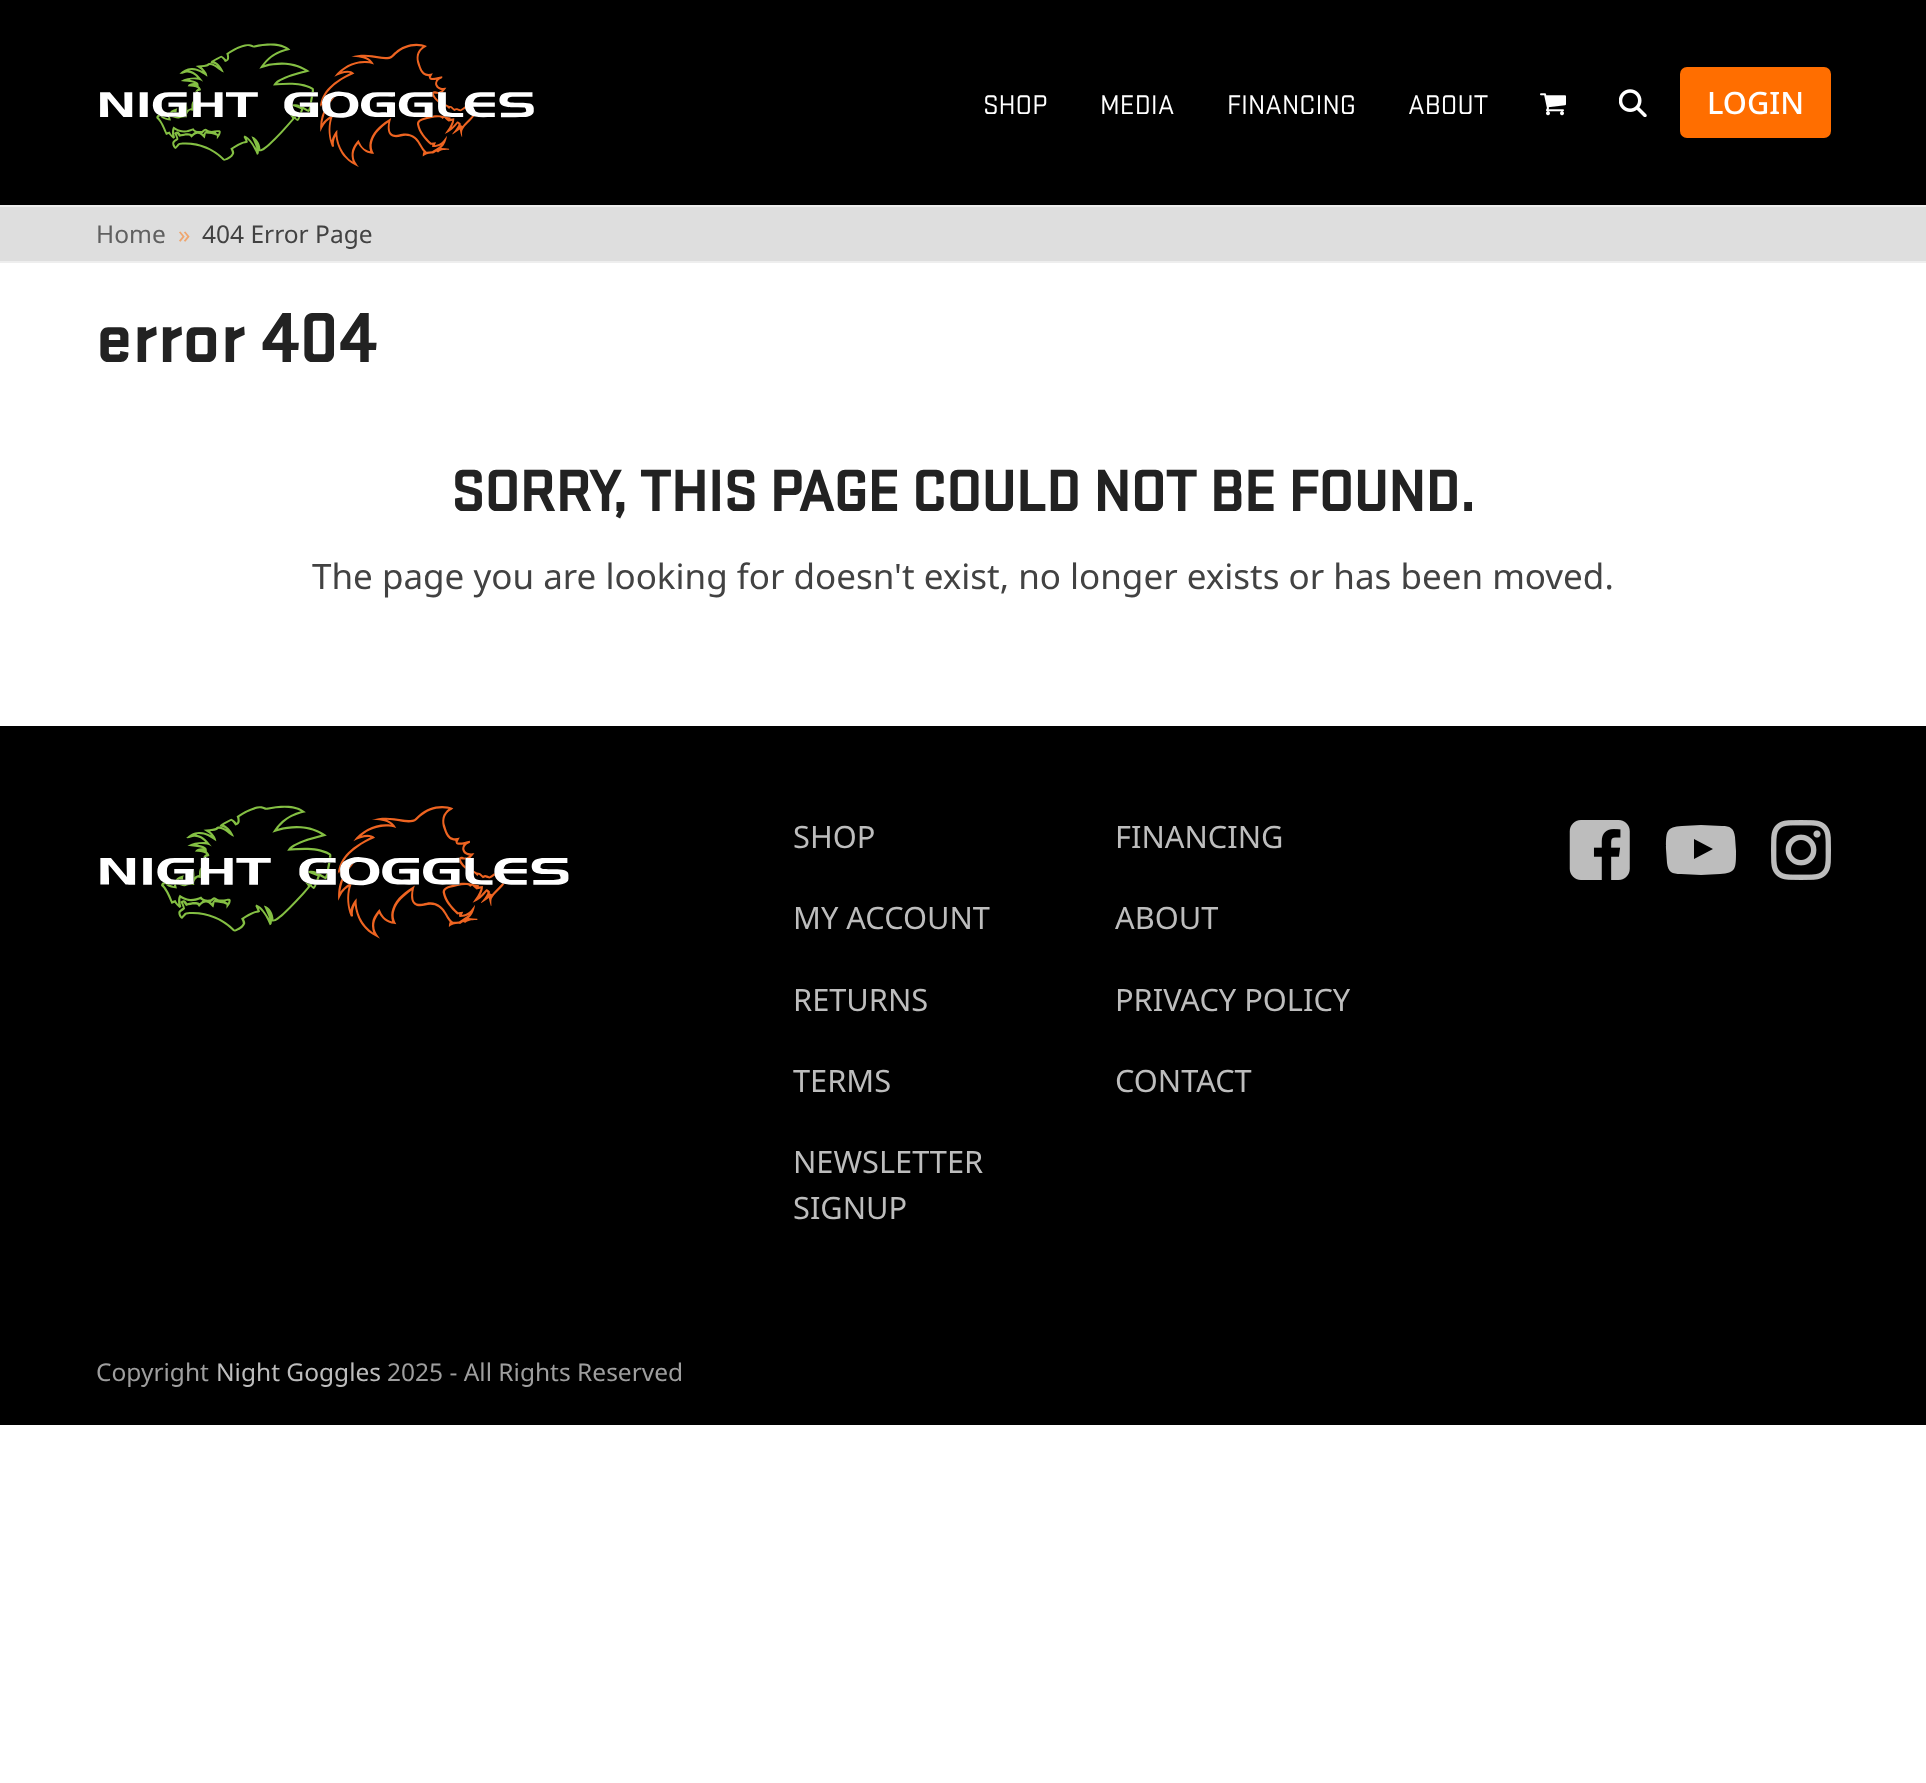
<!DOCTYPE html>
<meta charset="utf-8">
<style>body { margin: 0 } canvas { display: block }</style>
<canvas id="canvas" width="1926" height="1783"></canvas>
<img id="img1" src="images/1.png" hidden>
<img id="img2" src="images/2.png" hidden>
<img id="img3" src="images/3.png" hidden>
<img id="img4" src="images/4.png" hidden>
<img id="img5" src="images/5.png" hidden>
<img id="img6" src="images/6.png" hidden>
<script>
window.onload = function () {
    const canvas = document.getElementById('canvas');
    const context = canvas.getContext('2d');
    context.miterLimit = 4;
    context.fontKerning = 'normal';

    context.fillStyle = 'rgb(255, 255, 255)';
    context.fillRect(0, 0, 1926, 1783);
    context.fillStyle = 'rgb(0, 0, 0)';
    context.fillRect(0, 0, 1926, 205);
    context.drawImage(document.getElementById('img1'), 100, 43, 434, 124);
    context.drawImage(document.getElementById('img2'), 1540, 93, 26, 23);
    context.drawImage(document.getElementById('img3'), 1619, 89, 28, 28);
    context.fillStyle = 'rgb(255, 110, 0)';
    context.beginPath();
    context.roundRect(1680, 67, 151, 71, 7);
    context.fill();
    context.fillStyle = 'rgb(222, 222, 222)';
    context.fillRect(0, 207, 1926, 54);
    context.fillStyle = 'rgb(238, 238, 238)';
    context.fillRect(0, 205, 1926, 2);
    context.fillRect(0, 261, 1926, 2);
    context.fillStyle = 'rgb(0, 0, 0)';
    context.fillRect(0, 726, 1926, 699);
    context.drawImage(document.getElementById('img4'), 100, 805, 469, 134);
    context.drawImage(document.getElementById('img5'), 1569, 820, 61, 60);
    context.fillStyle = 'rgb(189, 189, 189)';
    context.beginPath();
    context.moveTo(1694, 859);
    context.lineTo(1713, 849);
    context.lineTo(1694, 839);
    context.closePath();
    context.moveTo(1701, 825);
    context.lineTo(1722, 826);
    context.bezierCurveTo(1730, 826, 1734, 828, 1735, 837);
    context.lineTo(1736, 851);
    context.bezierCurveTo(1736, 869, 1736, 873, 1720, 874);
    context.lineTo(1701, 875);
    context.lineTo(1681, 874);
    context.bezierCurveTo(1672, 874, 1668, 872, 1667, 863);
    context.lineTo(1666, 849);
    context.bezierCurveTo(1666, 831, 1666, 827, 1682, 826);
    context.closePath();
    context.fill();
    context.drawImage(document.getElementById('img6'), 1771, 820, 60, 60);
    context.font = '28px "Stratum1"';
    context.fillStyle = 'rgb(255, 255, 255)';
    context.fillText('SHOP', 983, 114);
    context.fillText('MEDIA', 1100, 114);
    context.fillText('FINANCING', 1227, 114);
    context.fillText('ABOUT', 1408, 114);
    context.font = '500 30.75px Noto Sans';
    context.fillText('LOGIN', 1707, 114);
    context.font = '24.5px Noto Sans';
    context.fillStyle = 'rgb(96, 96, 96)';
    context.fillText('Home', 96, 243);
    context.fillStyle = 'rgb(239, 166, 111)';
    context.fillText('»', 178, 243);
    context.fillStyle = 'rgb(66, 66, 66)';
    context.fillText('404 Error Page', 202, 243);
    context.font = 'bold 73.5px "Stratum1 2"';
    context.fillStyle = 'rgb(34, 34, 34)';
    context.fillText('error 404', 96, 362);
    context.font = 'bold 59.5px "Stratum1"';
    context.fillText('SORRY, THIS PAGE COULD NOT BE FOUND.', 451, 511);
    context.font = '35px Noto Sans';
    context.fillStyle = 'rgb(66, 66, 66)';
    context.fillText('The page you are looking for doesn\'t exist, no longer exists or has been moved.', 312, 589);
    context.font = '30.75px Noto Sans';
    context.fillStyle = 'rgb(189, 189, 189)';
    context.fillText('SHOP', 793, 848);
    context.fillText('MY ACCOUNT', 793, 929);
    context.fillText('RETURNS', 793, 1011);
    context.fillText('TERMS', 793, 1092);
    context.fillText('NEWSLETTER', 793, 1173);
    context.fillText('SIGNUP', 793, 1219);
    context.fillText('FINANCING', 1115, 848);
    context.fillText('ABOUT', 1115, 929);
    context.fillText('PRIVACY POLICY', 1115, 1011);
    context.fillText('CONTACT', 1115, 1092);
    context.font = '24.5px Noto Sans';
    context.fillStyle = 'rgb(158, 158, 158)';
    context.fillText('Copyright', 96, 1381);
    context.fillStyle = 'rgb(189, 189, 189)';
    context.fillText('Night Goggles', 216, 1381);
    context.fillStyle = 'rgb(158, 158, 158)';
    context.fillText('2025 - All Rights Reserved', 387, 1381);
};
</script>
